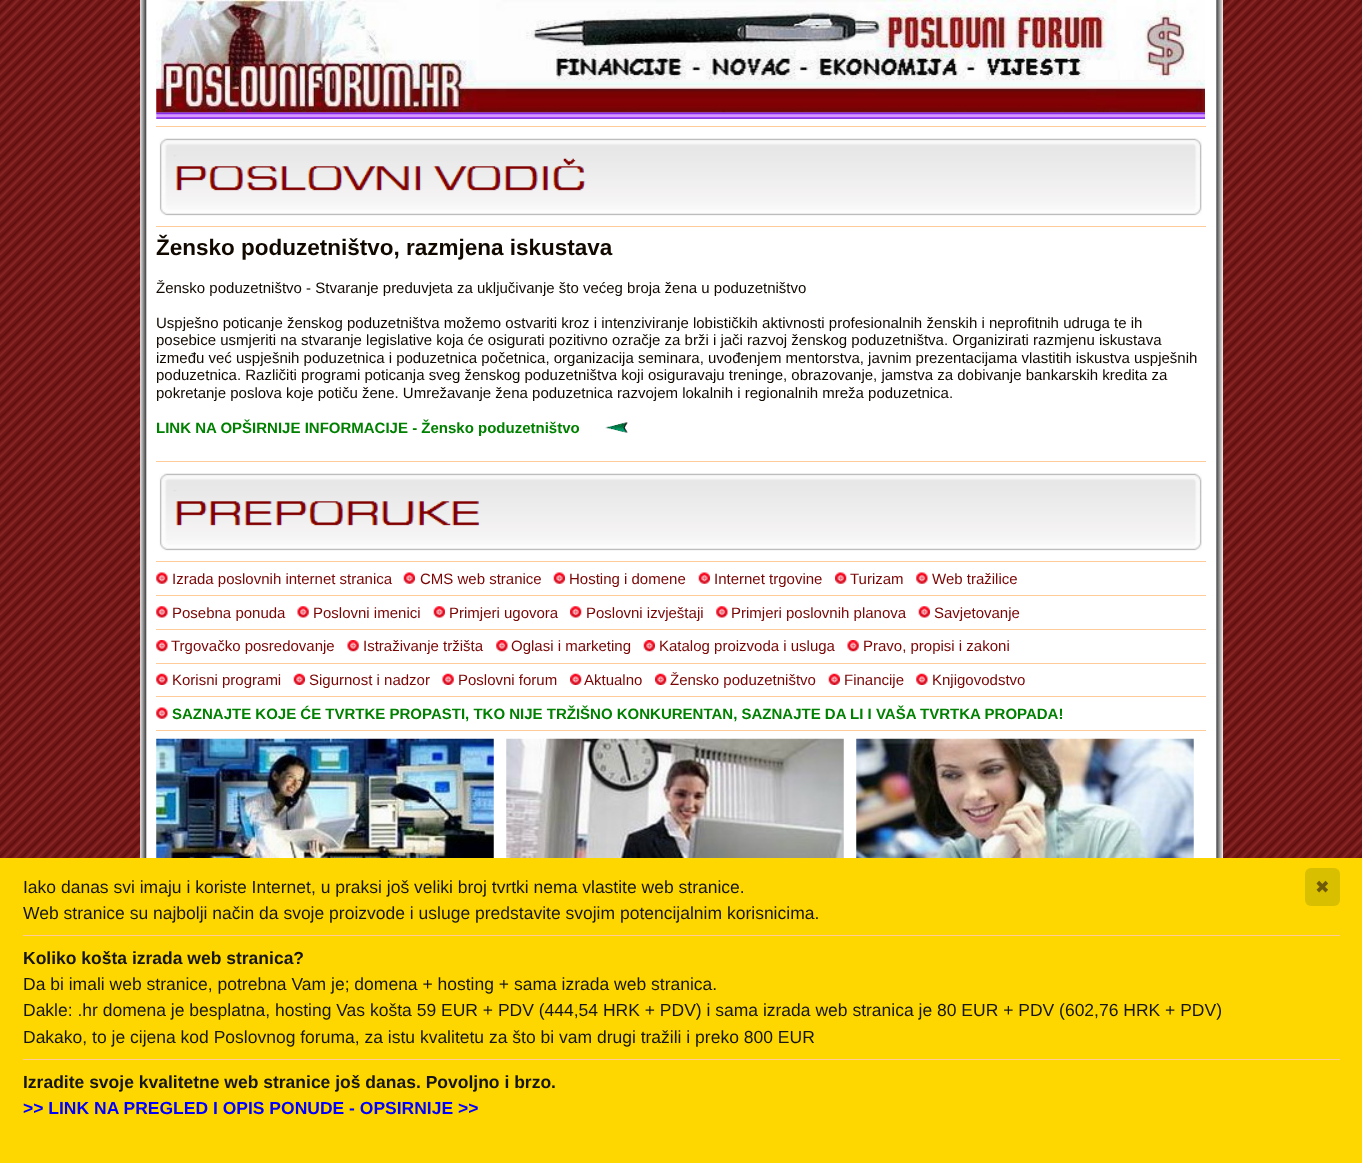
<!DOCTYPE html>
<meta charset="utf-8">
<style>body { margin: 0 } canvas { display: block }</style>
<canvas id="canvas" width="1362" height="1163"></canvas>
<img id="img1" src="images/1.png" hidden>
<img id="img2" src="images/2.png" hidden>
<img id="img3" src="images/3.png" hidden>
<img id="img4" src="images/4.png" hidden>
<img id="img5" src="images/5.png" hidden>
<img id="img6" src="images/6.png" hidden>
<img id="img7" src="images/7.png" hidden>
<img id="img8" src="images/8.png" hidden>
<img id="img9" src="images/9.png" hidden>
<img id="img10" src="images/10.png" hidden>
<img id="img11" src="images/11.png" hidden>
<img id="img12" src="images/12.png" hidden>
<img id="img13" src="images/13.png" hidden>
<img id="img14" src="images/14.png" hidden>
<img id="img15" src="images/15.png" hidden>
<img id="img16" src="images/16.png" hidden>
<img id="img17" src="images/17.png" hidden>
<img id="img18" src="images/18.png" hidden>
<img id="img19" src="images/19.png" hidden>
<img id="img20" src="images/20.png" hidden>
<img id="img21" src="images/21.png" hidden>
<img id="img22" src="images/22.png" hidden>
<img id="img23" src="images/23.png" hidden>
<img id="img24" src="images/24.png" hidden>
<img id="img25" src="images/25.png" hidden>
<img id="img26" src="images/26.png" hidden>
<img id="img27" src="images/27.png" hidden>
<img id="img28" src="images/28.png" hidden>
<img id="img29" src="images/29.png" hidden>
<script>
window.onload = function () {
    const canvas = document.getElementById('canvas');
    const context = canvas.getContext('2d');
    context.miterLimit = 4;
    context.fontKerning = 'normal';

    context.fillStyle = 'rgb(255, 255, 255)';
    context.fillRect(0, 0, 1362, 1163);
    context.drawImage(document.getElementById('img1'), 0, 0, 1362, 858);
    context.fillRect(147, 0, 1076, 858);
    context.drawImage(document.getElementById('img2'), 140, 0, 7, 858);
    context.drawImage(document.getElementById('img3'), 156, 0, 1049, 113);
    context.drawImage(document.getElementById('img4'), 156, 112, 1049, 7);
    context.fillStyle = 'rgb(255, 204, 153)';
    context.fillRect(156, 126, 1050, 1);
    context.drawImage(document.getElementById('img5'), 159, 138, 1043, 78);
    context.fillRect(156, 226, 1050, 1);
    context.drawImage(document.getElementById('img6'), 605, 422, 23, 11);
    context.fillRect(156, 461, 1050, 1);
    context.drawImage(document.getElementById('img7'), 159, 473, 1043, 78);
    context.fillRect(156, 561, 1050, 1);
    context.drawImage(document.getElementById('img8'), 156, 572, 12, 12);
    context.drawImage(document.getElementById('img9'), 403, 572, 12, 12);
    context.drawImage(document.getElementById('img9'), 553, 572, 12, 12);
    context.drawImage(document.getElementById('img9'), 698, 572, 12, 12);
    context.drawImage(document.getElementById('img10'), 835, 572, 12, 12);
    context.drawImage(document.getElementById('img8'), 916, 572, 12, 12);
    context.fillRect(156, 595, 1050, 1);
    context.drawImage(document.getElementById('img11'), 156, 606, 12, 12);
    context.drawImage(document.getElementById('img12'), 297, 606, 12, 12);
    context.drawImage(document.getElementById('img13'), 433, 606, 12, 12);
    context.drawImage(document.getElementById('img14'), 570, 606, 12, 12);
    context.drawImage(document.getElementById('img11'), 716, 606, 12, 12);
    context.drawImage(document.getElementById('img15'), 918, 606, 12, 12);
    context.fillRect(156, 629, 1050, 1);
    context.drawImage(document.getElementById('img16'), 156, 640, 12, 12);
    context.drawImage(document.getElementById('img17'), 347, 640, 12, 12);
    context.drawImage(document.getElementById('img16'), 496, 640, 12, 12);
    context.drawImage(document.getElementById('img18'), 643, 640, 12, 12);
    context.drawImage(document.getElementById('img19'), 847, 640, 12, 12);
    context.fillRect(156, 663, 1050, 1);
    context.drawImage(document.getElementById('img20'), 156, 673, 12, 12);
    context.drawImage(document.getElementById('img21'), 293, 673, 12, 12);
    context.drawImage(document.getElementById('img22'), 442, 673, 12, 12);
    context.drawImage(document.getElementById('img23'), 570, 673, 12, 12);
    context.drawImage(document.getElementById('img24'), 655, 673, 12, 12);
    context.drawImage(document.getElementById('img25'), 828, 673, 12, 12);
    context.drawImage(document.getElementById('img20'), 916, 673, 12, 12);
    context.fillRect(156, 696, 1050, 1);
    context.drawImage(document.getElementById('img8'), 156, 707, 12, 12);
    context.fillRect(156, 730, 1050, 1);
    context.drawImage(document.getElementById('img26'), 156, 738, 338, 120);
    context.drawImage(document.getElementById('img27'), 506, 738, 338, 120);
    context.drawImage(document.getElementById('img28'), 856, 738, 338, 120);
    context.drawImage(document.getElementById('img29'), 1216, 0, 7, 858);
    context.fillStyle = 'rgb(255, 215, 0)';
    context.fillRect(0, 858, 1362, 305);
    context.fillStyle = 'rgb(255, 204, 153)';
    context.fillRect(23, 935, 1317, 1);
    context.fillRect(23, 1059, 1317, 1);
    context.fillStyle = 'rgb(216, 191, 0)';
    context.beginPath();
    context.roundRect(1305, 868, 35, 38, 6);
    context.fill();
    context.font = 'bold 22.5px Liberation Sans';
    context.fillStyle = 'rgb(17, 9, 0)';
    context.fillText('Žensko poduzetništvo, razmjena iskustava', 156, 255);
    context.font = '15px Liberation Sans';
    context.fillText('Žensko poduzetništvo - Stvaranje preduvjeta za uključivanje što većeg broja žena u poduzetništvo', 156, 293);
    context.fillText('Uspješno poticanje ženskog poduzetništva možemo ostvariti kroz i intenziviranje lobističkih aktivnosti profesionalnih ženskih i neprofitnih udruga te ih', 156, 328);
    context.fillText('posebice usmjeriti na stvaranje legislative koja će osigurati pozitivno ozračje za brži i jači razvoj ženskog poduzetništva. Organizirati razmjenu iskustava', 156, 345);
    context.fillText('između već uspješnih poduzetnica i poduzetnica početnica, organizacija seminara, uvođenjem mentorstva, javnim prezentacijama vlastitih iskustva uspješnih', 156, 363);
    context.fillText('poduzetnica. Različiti programi poticanja sveg ženskog poduzetništva koji osiguravaju treninge, obrazovanje, jamstva za dobivanje bankarskih kredita za', 156, 380);
    context.fillText('pokretanje poslova koje potiču žene. Umrežavanje žena poduzetnica razvojem lokalnih i regionalnih mreža poduzetnica.', 156, 398);
    context.font = 'bold 15px Liberation Sans';
    context.fillStyle = 'rgb(0, 128, 0)';
    context.fillText('LINK NA OPŠIRNIJE INFORMACIJE - Žensko poduzetništvo', 156, 433);
    context.font = '15px Liberation Sans';
    context.fillStyle = 'rgb(121, 5, 5)';
    context.fillText('Izrada poslovnih internet stranica', 172, 584);
    context.fillText('CMS web stranice', 420, 584);
    context.fillText('Hosting i domene', 569, 584);
    context.fillText('Internet trgovine', 714, 584);
    context.fillText('Turizam', 850, 584);
    context.fillText('Web tražilice', 932, 584);
    context.fillText('Posebna ponuda', 172, 618);
    context.fillText('Poslovni imenici', 313, 618);
    context.fillText('Primjeri ugovora', 449, 618);
    context.fillText('Poslovni izvještaji', 586, 618);
    context.fillText('Primjeri poslovnih planova', 731, 618);
    context.fillText('Savjetovanje', 934, 618);
    context.fillText('Trgovačko posredovanje', 171, 651);
    context.fillText('Istraživanje tržišta', 363, 651);
    context.fillText('Oglasi i marketing', 511, 651);
    context.fillText('Katalog proizvoda i usluga', 659, 651);
    context.fillText('Pravo, propisi i zakoni', 863, 651);
    context.fillText('Korisni programi', 172, 685);
    context.fillText('Sigurnost i nadzor', 309, 685);
    context.fillText('Poslovni forum', 458, 685);
    context.fillText('Aktualno', 584, 685);
    context.fillText('Žensko poduzetništvo', 670, 685);
    context.fillText('Financije', 844, 685);
    context.fillText('Knjigovodstvo', 932, 685);
    context.font = 'bold 15px Liberation Sans';
    context.fillStyle = 'rgb(0, 128, 0)';
    context.fillText('SAZNAJTE KOJE ĆE TVRTKE PROPASTI, TKO NIJE TRŽIŠNO KONKURENTAN, SAZNAJTE DA LI I VAŠA TVRTKA PROPADA!', 172, 719);
    context.font = '17.5px Liberation Sans';
    context.fillStyle = 'rgb(21, 21, 21)';
    context.fillText('Iako danas svi imaju i koriste Internet, u praksi još veliki broj tvrtki nema vlastite web stranice.', 23, 893);
    context.fillText('Web stranice su najbolji način da svoje proizvode i usluge predstavite svojim potencijalnim korisnicima.', 23, 919);
    context.font = 'bold 17.5px Liberation Sans';
    context.fillText('Koliko košta izrada web stranica?', 23, 964);
    context.font = '17.5px Liberation Sans';
    context.fillText('Da bi imali web stranice, potrebna Vam je; domena + hosting + sama izrada web stranica.', 23, 990);
    context.fillText('Dakle: .hr domena je besplatna, hosting Vas košta 59 EUR + PDV (444,54 HRK + PDV) i sama izrada web stranica je 80 EUR + PDV (602,76 HRK + PDV)', 23, 1016);
    context.fillText('Dakako, to je cijena kod Poslovnog foruma, za istu kvalitetu za što bi vam drugi tražili i preko 800 EUR', 23, 1043);
    context.font = 'bold 17.5px Liberation Sans';
    context.fillText('Izradite svoje kvalitetne web stranice još danas. Povoljno i brzo.', 23, 1088);
    context.fillStyle = 'rgb(0, 0, 255)';
    context.fillText('>> LINK NA PREGLED I OPIS PONUDE - OPSIRNIJE >>', 23, 1114);
    context.font = '17.5px DejaVu Sans';
    context.fillStyle = 'rgb(111, 90, 7)';
    context.fillText('✖', 1315, 893);
};
</script>
